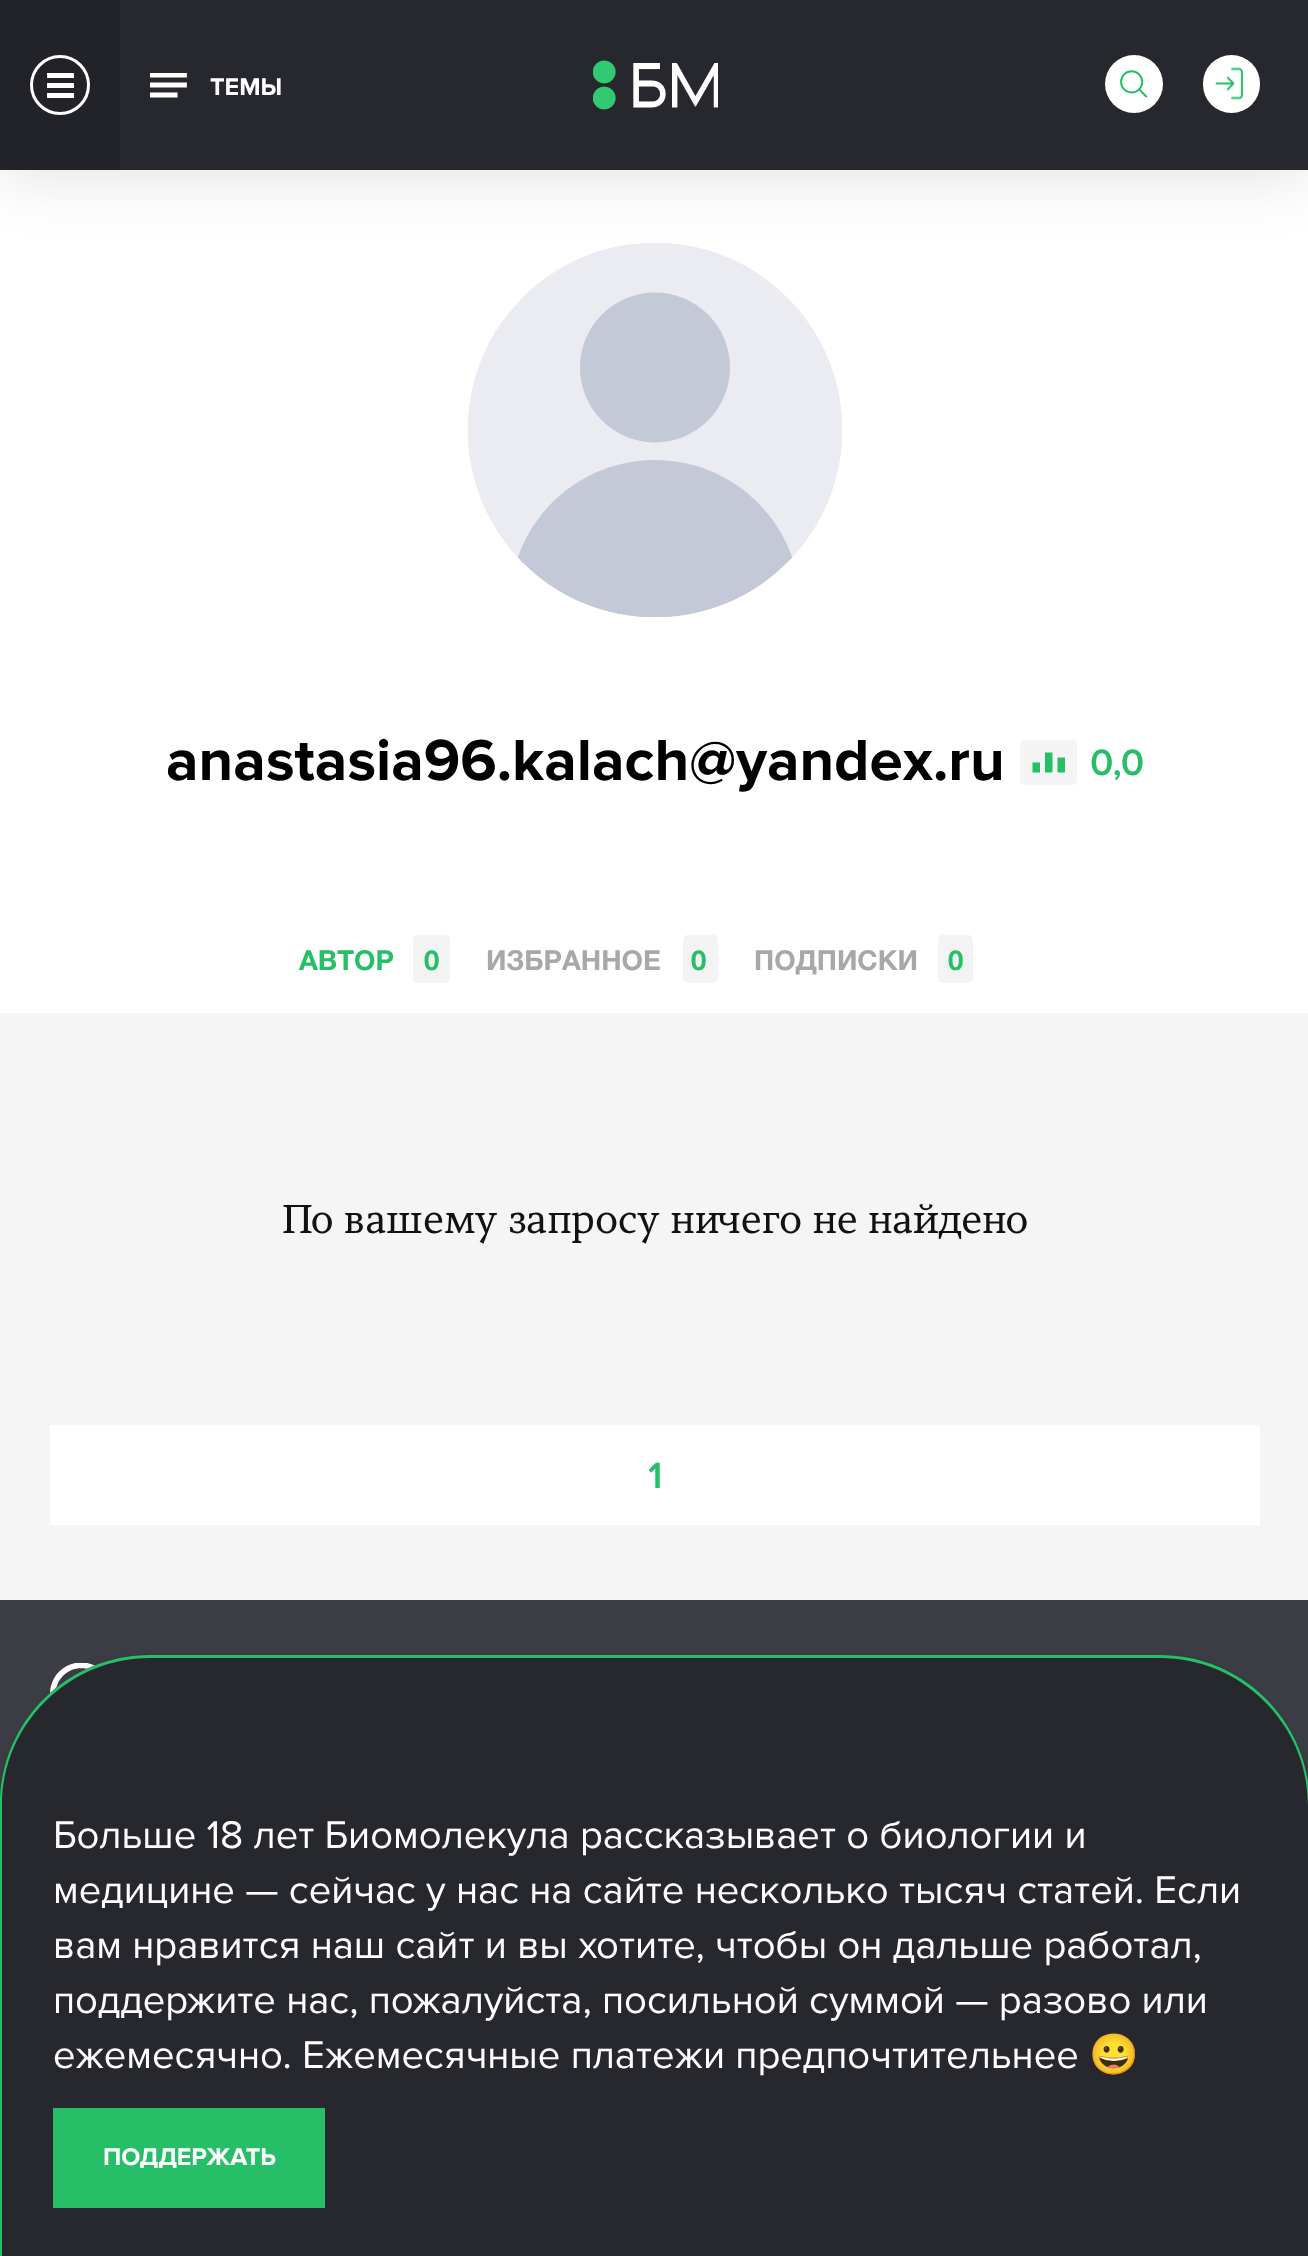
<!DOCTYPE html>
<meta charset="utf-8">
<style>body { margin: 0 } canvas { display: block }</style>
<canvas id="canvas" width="1308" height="2256"></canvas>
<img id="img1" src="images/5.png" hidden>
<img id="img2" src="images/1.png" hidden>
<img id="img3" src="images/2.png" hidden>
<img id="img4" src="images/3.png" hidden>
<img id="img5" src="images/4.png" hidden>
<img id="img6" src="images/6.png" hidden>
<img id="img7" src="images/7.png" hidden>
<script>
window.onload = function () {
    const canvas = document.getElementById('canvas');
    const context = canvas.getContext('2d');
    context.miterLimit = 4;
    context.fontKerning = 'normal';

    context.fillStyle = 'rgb(245, 245, 245)';
    context.fillRect(0, 0, 1308, 2256);
    context.fillStyle = 'rgb(255, 255, 255)';
    context.fillRect(0, 170, 1308, 843);
    context.drawImage(document.getElementById('img1'), 468, 243, 374, 375);
    context.fillStyle = 'rgba(0, 0, 0, 0.1)';
    context.filter = 'blur(30px)';
    context.beginPath();
    context.rect(0, 10, 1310, 170);
    context.fill();
    context.filter = 'none';
    context.fillStyle = 'rgb(38, 40, 45)';
    context.fillRect(120, 0, 1188, 170);
    context.fillStyle = 'rgb(34, 35, 40)';
    context.fillRect(0, 0, 120, 170);
    context.beginPath();
    context.arc(60, 85, 28.5, 0, 2 * Math.PI);
    context.strokeStyle = 'rgb(255, 255, 255)';
    context.lineWidth = 3;
    context.stroke();
    context.fillStyle = 'rgb(255, 255, 255)';
    context.fillRect(47, 73, 27, 5);
    context.fillRect(47, 83, 27, 5);
    context.fillRect(47, 93, 27, 5);
    context.drawImage(document.getElementById('img2'), 593, 60, 125, 50);
    context.beginPath();
    context.arc(1134, 84, 29, 0, 2 * Math.PI);
    context.fill();
    context.drawImage(document.getElementById('img3'), 1120, 70, 28, 28);
    context.beginPath();
    context.roundRect(1203, 55, 57, 58, 28.5);
    context.fill();
    context.drawImage(document.getElementById('img4'), 1215, 67, 28, 33);
    context.drawImage(document.getElementById('img5'), 150, 73, 37, 25);
    context.drawImage(document.getElementById('img6'), 1020, 740, 57, 45);
    context.fillStyle = 'rgb(243, 243, 243)';
    context.beginPath();
    context.roundRect(413, 935, 37, 48, 5);
    context.fill();
    context.beginPath();
    context.roundRect(683, 935, 35, 48, 5);
    context.fill();
    context.beginPath();
    context.roundRect(938, 935, 35, 48, 5);
    context.fill();
    context.fillStyle = 'rgb(255, 255, 255)';
    context.fillRect(50, 1425, 1210, 100);
    context.fillStyle = 'rgb(61, 62, 69)';
    context.fillRect(0, 1600, 1308, 205);
    context.drawImage(document.getElementById('img7'), 50, 1663, 46, 31);
    context.fillStyle = 'rgba(0, 0, 0, 0.1)';
    context.filter = 'blur(5px)';
    context.beginPath();
    context.roundRect(0, 1655, 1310, 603, 150);
    context.fill();
    context.filter = 'none';
    context.fillStyle = 'rgb(38, 40, 45)';
    context.beginPath();
    context.moveTo(150, 1655);
    context.lineTo(1160, 1655);
    context.bezierCurveTo(1243, 1655, 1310, 1722, 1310, 1805);
    context.lineTo(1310, 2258);
    context.lineTo(0, 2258);
    context.lineTo(0, 1805);
    context.bezierCurveTo(0, 1722, 67, 1655, 150, 1655);
    context.closePath();
    context.fill();
    context.fillStyle = 'rgb(38, 191, 104)';
    context.beginPath();
    context.moveTo(150, 1655);
    context.lineTo(1160, 1655);
    context.bezierCurveTo(1243, 1655, 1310, 1722, 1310, 1805);
    context.lineTo(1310, 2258);
    context.lineTo(0, 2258);
    context.lineTo(0, 1805);
    context.bezierCurveTo(0, 1722, 67, 1655, 150, 1655);
    context.closePath();
    context.moveTo(150, 1658);
    context.lineTo(1160, 1658);
    context.bezierCurveTo(1241, 1658, 1308, 1724, 1308, 1805);
    context.lineTo(1308, 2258);
    context.lineTo(2, 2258);
    context.lineTo(2, 1805);
    context.bezierCurveTo(2, 1724, 69, 1658, 150, 1658);
    context.closePath();
    context.fill('evenodd');
    context.fillRect(53, 2108, 272, 100);
    context.font = 'bold 25px Proxima Nova';
    context.fillStyle = 'rgb(255, 255, 255)';
    context.fillText('ТЕМЫ', 210, 95);
    context.font = 'bold 60px Proxima Nova';
    context.fillStyle = 'rgb(0, 0, 0)';
    context.fillText('anastasia96.kalach@yandex.ru', 166, 780);
    context.font = '600 38px Proxima Nova';
    context.fillStyle = 'rgb(38, 191, 104)';
    context.fillText('0,0', 1090, 775);
    context.font = 'bold 27.5px Helvetica Neue';
    context.fillText('АВТОР', 299, 970);
    context.fillText('0', 424, 970);
    context.fillStyle = 'rgb(168, 168, 168)';
    context.fillText('ИЗБРАННОЕ', 486, 970);
    context.fillStyle = 'rgb(38, 191, 104)';
    context.fillText('0', 691, 970);
    context.fillStyle = 'rgb(168, 168, 168)';
    context.fillText('ПОДПИСКИ', 754, 970);
    context.fillStyle = 'rgb(38, 191, 104)';
    context.fillText('0', 948, 970);
    context.font = '40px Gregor';
    context.fillStyle = 'rgb(17, 17, 17)';
    context.fillText('По вашему запросу ничего не найдено', 282, 1233);
    context.font = '600 38px Proxima Nova';
    context.fillStyle = 'rgb(38, 191, 104)';
    context.fillText('1', 648, 1488);
    context.font = '40px Proxima Nova';
    context.fillStyle = 'rgb(255, 255, 255)';
    context.fillText('Больше 18 лет Биомолекула рассказывает о биологии и', 53, 1848);
    context.fillText('медицине — сейчас у нас на сайте несколько тысяч статей. Если', 53, 1903);
    context.fillText('вам нравится наш сайт и вы хотите, чтобы он дальше работал,', 53, 1958);
    context.fillText('поддержите нас, пожалуйста, посильной суммой — разово или', 53, 2013);
    context.fillText('ежемесячно. Ежемесячные платежи предпочтительнее', 53, 2068);
    context.font = '40px Noto Color Emoji';
    context.fillText('😀', 1089, 2068);
    context.font = 'bold 25px Proxima Nova';
    context.fillText('ПОДДЕРЖАТЬ', 103, 2165);
};
</script>
